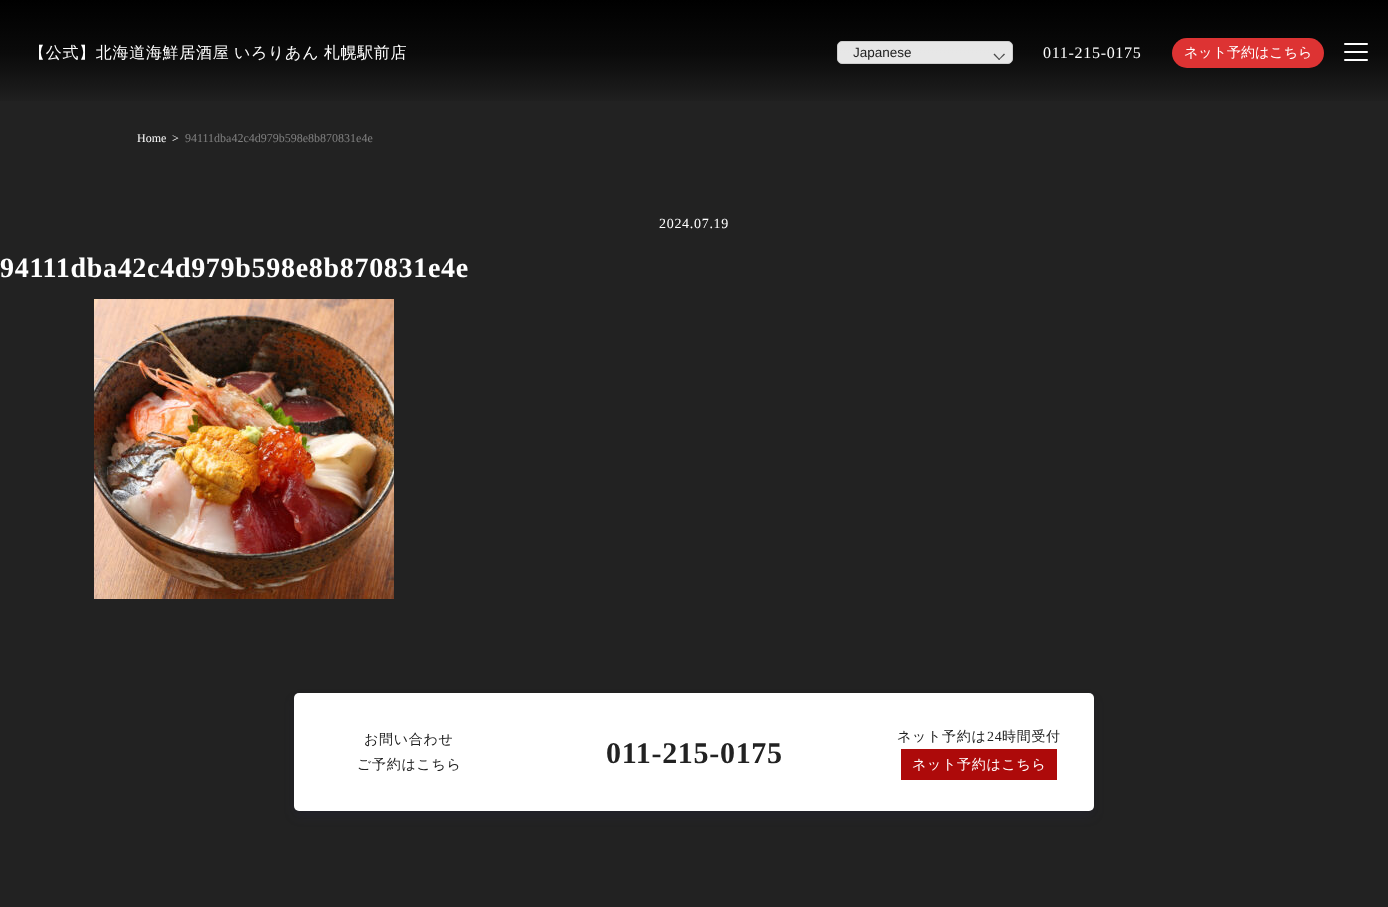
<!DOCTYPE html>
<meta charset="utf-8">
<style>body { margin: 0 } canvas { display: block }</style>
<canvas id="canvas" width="1388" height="907"></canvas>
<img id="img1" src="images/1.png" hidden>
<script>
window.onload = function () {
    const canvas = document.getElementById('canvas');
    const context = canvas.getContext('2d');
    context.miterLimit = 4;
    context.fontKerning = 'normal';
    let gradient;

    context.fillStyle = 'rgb(34, 34, 34)';
    context.fillRect(0, 0, 1388, 907);
    gradient = context.createLinearGradient(694, 106, 694, 0);
    gradient.addColorStop(0, 'rgb(34, 34, 34)');
    gradient.addColorStop(0.2, 'rgb(24, 24, 24)');
    gradient.addColorStop(0.5, 'rgb(10, 10, 10)');
    gradient.addColorStop(1, 'rgb(0, 0, 0)');
    context.fillStyle = gradient;
    context.fillRect(0, 0, 1388, 101);
    context.fillStyle = 'rgba(255, 255, 255, 0.9)';
    context.beginPath();
    context.roundRect(837.5, 41.5, 175, 22, 4.5);
    context.fill();
    context.strokeStyle = 'rgb(204, 204, 204)';
    context.stroke();
    context.fillStyle = 'rgb(73, 73, 73)';
    context.beginPath();
    context.moveTo(1005, 54.5);
    context.lineTo(999, 60);
    context.lineTo(998.5, 59.5);
    context.lineTo(1004, 53.5);
    context.closePath();
    context.fill();
    context.beginPath();
    context.moveTo(1000, 59.5);
    context.lineTo(999, 60);
    context.lineTo(993.5, 54.5);
    context.lineTo(994.5, 53.5);
    context.closePath();
    context.fill();
    context.fillStyle = 'rgb(221, 51, 51)';
    context.beginPath();
    context.roundRect(1172, 38, 152, 30, 15);
    context.fill();
    context.fillStyle = 'rgb(255, 255, 255)';
    context.beginPath();
    context.roundRect(1344, 43, 24, 2, 1);
    context.fill();
    context.beginPath();
    context.roundRect(1344, 51, 24, 2, 1);
    context.fill();
    context.beginPath();
    context.roundRect(1344, 59, 24, 2, 1);
    context.fill();
    context.drawImage(document.getElementById('img1'), 94, 299, 300, 300);
    context.fillStyle = 'rgba(0, 0, 0, 0.3)';
    context.filter = 'blur(3.5px)';
    context.beginPath();
    context.roundRect(297, 699, 794, 112, 2);
    context.fill();
    context.filter = 'none';
    context.fillStyle = 'rgba(50, 50, 93, 0.25)';
    context.filter = 'blur(6px)';
    context.beginPath();
    context.roundRect(296, 701, 796, 114, 3);
    context.fill();
    context.filter = 'none';
    context.fillStyle = 'rgb(255, 255, 255)';
    context.beginPath();
    context.roundRect(294, 693, 800, 118, 5);
    context.fill();
    context.fillStyle = 'rgb(173, 10, 10)';
    context.fillRect(901, 749, 156, 31);
    context.letterSpacing = '0.7px';
    context.wordSpacing = '-1px';
    context.font = '500 16px WenQuanYi Zen Hei';
    context.fillStyle = 'rgb(255, 255, 255)';
    context.fillText('【公式】北海道海鮮居酒屋 いろりあん 札幌駅前店', 29, 58);
    context.letterSpacing = '0px';
    context.wordSpacing = '0px';
    context.font = '13.5px Liberation Sans';
    context.fillStyle = 'rgb(34, 34, 34)';
    context.fillText('Japanese', 853, 57);
    context.letterSpacing = '0.7px';
    context.font = '16px Liberation Serif';
    context.fillStyle = 'rgb(255, 255, 255)';
    context.fillText('011-215-0175', 1043, 58);
    context.letterSpacing = '0px';
    context.font = '500 14px WenQuanYi Zen Hei';
    context.fillText('ネット予約はこちら', 1184, 57);
    context.font = '12px Liberation Serif';
    context.fillText('Home', 137, 142);
    context.fillText('>', 172, 142);
    context.fillStyle = 'rgb(128, 128, 128)';
    context.fillText('94111dba42c4d979b598e8b870831e4e', 185, 142);
    context.letterSpacing = '0.7px';
    context.font = '14px Liberation Serif';
    context.fillStyle = 'rgb(255, 255, 255)';
    context.fillText('2024.07.19', 659, 228);
    context.font = 'bold 28px Liberation Serif';
    context.fillText('94111dba42c4d979b598e8b870831e4e', 0, 277);
    context.font = '500 14px WenQuanYi Zen Hei';
    context.fillStyle = 'rgb(34, 34, 34)';
    context.fillText('お問い合わせ', 364, 744);
    context.fillText('ご予約はこちら', 357, 769);
    context.font = 'bold 30px Liberation Serif';
    context.fillText('011-215-0175', 606, 763);
    context.font = '500 14px WenQuanYi Zen Hei';
    context.fillText('ネット予約は', 897, 741);
    context.font = '14px Liberation Serif';
    context.fillText('24', 987, 741);
    context.font = '500 14px WenQuanYi Zen Hei';
    context.fillText('時間受付', 1002, 741);
    context.fillStyle = 'rgb(255, 255, 255)';
    context.fillText('ネット予約はこちら', 912, 769);
};
</script>
